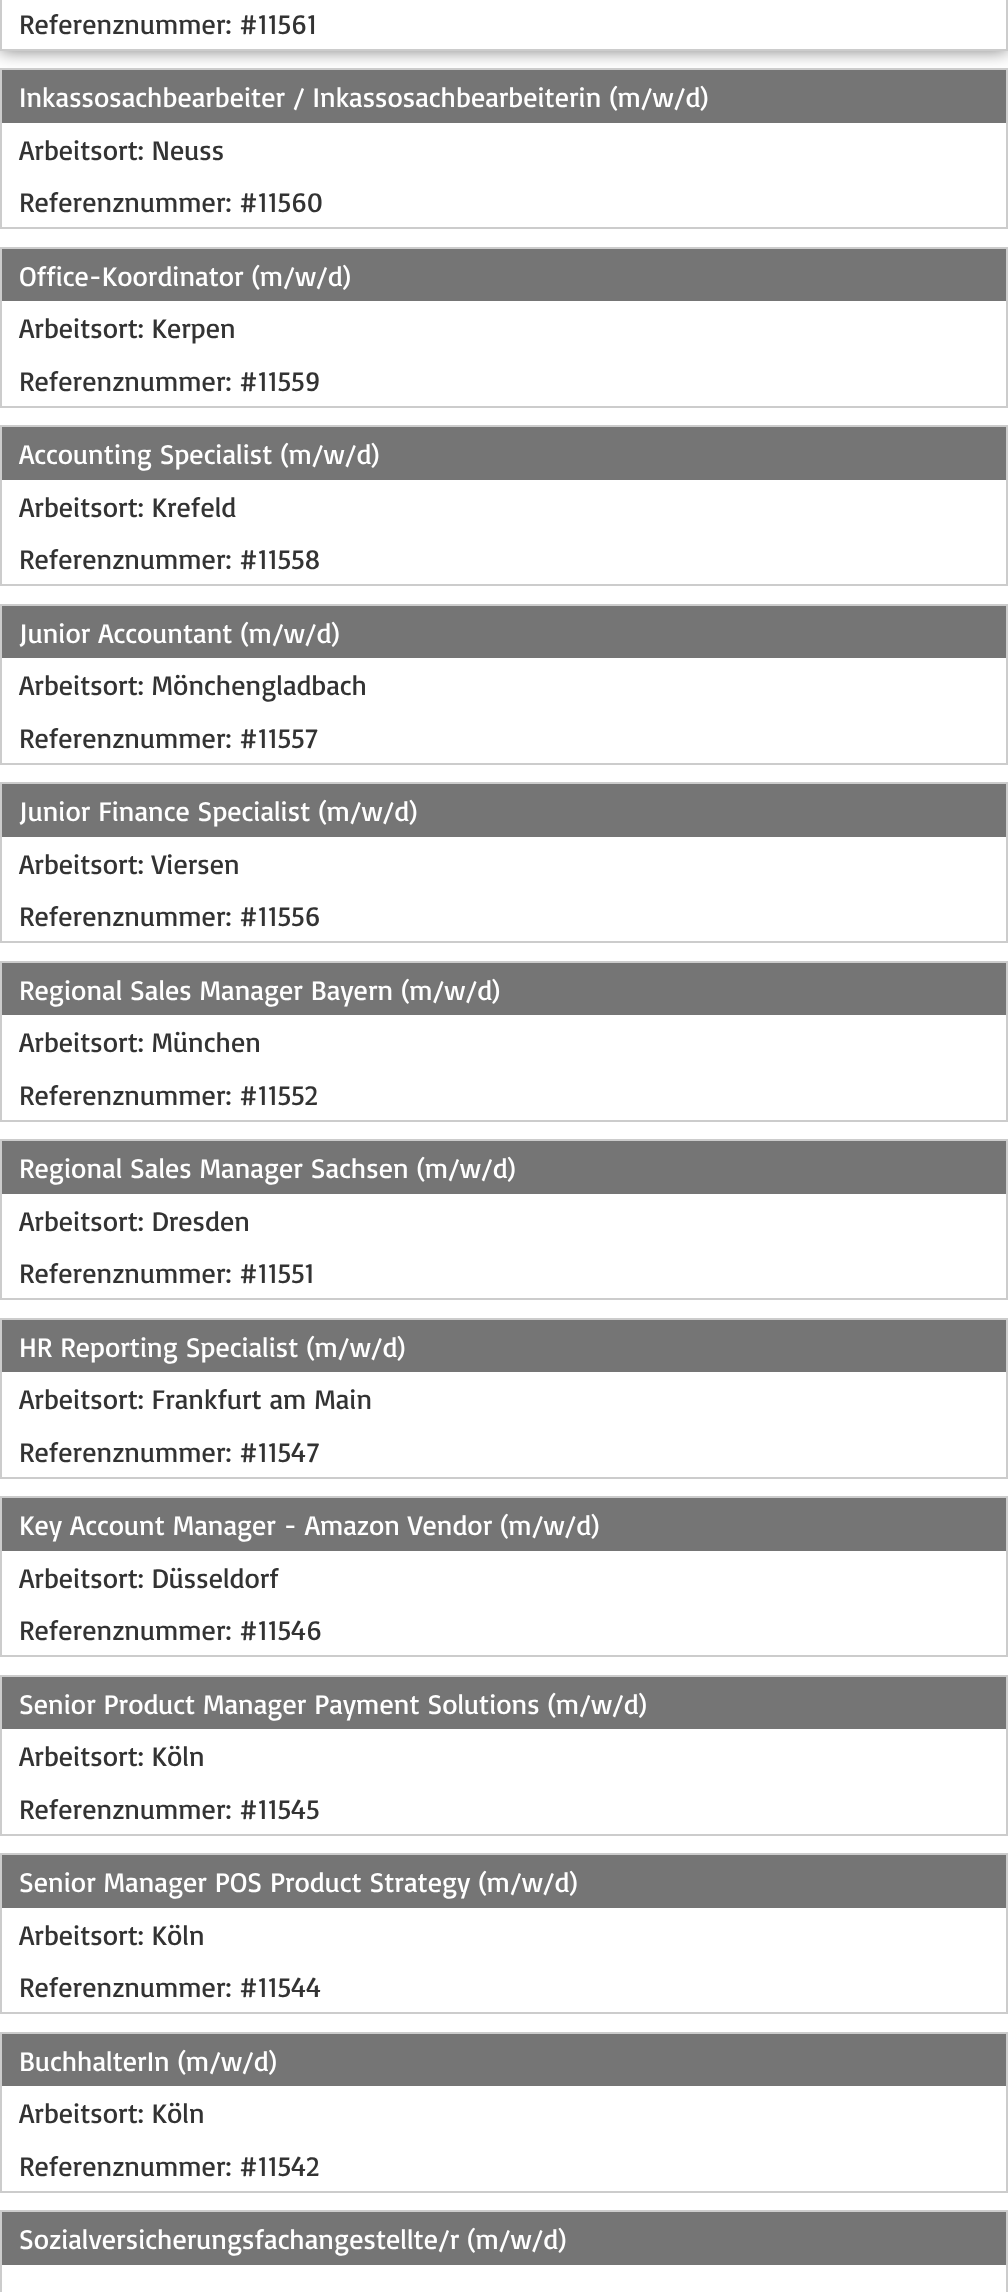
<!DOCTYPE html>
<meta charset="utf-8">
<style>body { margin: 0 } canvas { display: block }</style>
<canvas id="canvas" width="1008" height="2292"></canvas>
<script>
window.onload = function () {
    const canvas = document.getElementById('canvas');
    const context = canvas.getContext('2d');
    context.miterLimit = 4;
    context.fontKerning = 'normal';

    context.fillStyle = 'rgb(255, 255, 255)';
    context.fillRect(0, 0, 1008, 2292);
    context.fillStyle = 'rgba(0, 0, 0, 0.5)';
    context.filter = 'blur(9px)';
    context.beginPath();
    context.rect(0, -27, 1008, 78);
    context.fill();
    context.filter = 'none';
    context.fillStyle = 'rgb(255, 255, 255)';
    context.beginPath();
    context.rect(1, -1, 1006, 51);
    context.fill();
    context.strokeStyle = 'rgb(204, 204, 204)';
    context.lineWidth = 2;
    context.stroke();
    context.strokeRect(1, 69, 1006, 159);
    context.fillStyle = 'rgb(117, 117, 117)';
    context.fillRect(2, 70, 1004, 53);
    context.strokeRect(1, 248, 1006, 159);
    context.fillRect(2, 249, 1004, 52);
    context.strokeRect(1, 426, 1006, 159);
    context.fillRect(2, 427, 1004, 53);
    context.strokeRect(1, 605, 1006, 159);
    context.fillRect(2, 606, 1004, 52);
    context.strokeRect(1, 783, 1006, 159);
    context.fillRect(2, 784, 1004, 53);
    context.strokeRect(1, 962, 1006, 159);
    context.fillRect(2, 963, 1004, 52);
    context.strokeRect(1, 1140, 1006, 159);
    context.fillRect(2, 1141, 1004, 53);
    context.strokeRect(1, 1319, 1006, 159);
    context.fillRect(2, 1320, 1004, 52);
    context.strokeRect(1, 1497, 1006, 159);
    context.fillRect(2, 1498, 1004, 53);
    context.strokeRect(1, 1676, 1006, 159);
    context.fillRect(2, 1677, 1004, 52);
    context.strokeRect(1, 1854, 1006, 159);
    context.fillRect(2, 1855, 1004, 53);
    context.strokeRect(1, 2033, 1006, 159);
    context.fillRect(2, 2034, 1004, 52);
    context.strokeRect(1, 2211, 1006, 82);
    context.fillRect(2, 2212, 1004, 53);
    context.font = '28px Basic';
    context.fillStyle = 'rgb(51, 51, 51)';
    context.fillText('Referenznummer: #11561', 19, 34);
    context.fillStyle = 'rgb(255, 255, 255)';
    context.fillText('Inkassosachbearbeiter / Inkassosachbearbeiterin (m/w/d)', 19, 107);
    context.fillStyle = 'rgb(51, 51, 51)';
    context.fillText('Arbeitsort: Neuss', 19, 160);
    context.fillText('Referenznummer: #11560', 19, 212);
    context.fillStyle = 'rgb(255, 255, 255)';
    context.fillText('Office-Koordinator (m/w/d)', 19, 286);
    context.fillStyle = 'rgb(51, 51, 51)';
    context.fillText('Arbeitsort: Kerpen', 19, 338);
    context.fillText('Referenznummer: #11559', 19, 391);
    context.fillStyle = 'rgb(255, 255, 255)';
    context.fillText('Accounting Specialist (m/w/d)', 19, 464);
    context.fillStyle = 'rgb(51, 51, 51)';
    context.fillText('Arbeitsort: Krefeld', 19, 517);
    context.fillText('Referenznummer: #11558', 19, 569);
    context.fillStyle = 'rgb(255, 255, 255)';
    context.fillText('Junior Accountant (m/w/d)', 19, 643);
    context.fillStyle = 'rgb(51, 51, 51)';
    context.fillText('Arbeitsort: Mönchengladbach', 19, 695);
    context.fillText('Referenznummer: #11557', 19, 748);
    context.fillStyle = 'rgb(255, 255, 255)';
    context.fillText('Junior Finance Specialist (m/w/d)', 19, 821);
    context.fillStyle = 'rgb(51, 51, 51)';
    context.fillText('Arbeitsort: Viersen', 19, 874);
    context.fillText('Referenznummer: #11556', 19, 926);
    context.fillStyle = 'rgb(255, 255, 255)';
    context.fillText('Regional Sales Manager Bayern (m/w/d)', 19, 1000);
    context.fillStyle = 'rgb(51, 51, 51)';
    context.fillText('Arbeitsort: München', 19, 1052);
    context.fillText('Referenznummer: #11552', 19, 1105);
    context.fillStyle = 'rgb(255, 255, 255)';
    context.fillText('Regional Sales Manager Sachsen (m/w/d)', 19, 1178);
    context.fillStyle = 'rgb(51, 51, 51)';
    context.fillText('Arbeitsort: Dresden', 19, 1231);
    context.fillText('Referenznummer: #11551', 19, 1283);
    context.fillStyle = 'rgb(255, 255, 255)';
    context.fillText('HR Reporting Specialist (m/w/d)', 19, 1357);
    context.fillStyle = 'rgb(51, 51, 51)';
    context.fillText('Arbeitsort: Frankfurt am Main', 19, 1409);
    context.fillText('Referenznummer: #11547', 19, 1462);
    context.fillStyle = 'rgb(255, 255, 255)';
    context.fillText('Key Account Manager - Amazon Vendor (m/w/d)', 19, 1535);
    context.fillStyle = 'rgb(51, 51, 51)';
    context.fillText('Arbeitsort: Düsseldorf', 19, 1588);
    context.fillText('Referenznummer: #11546', 19, 1640);
    context.fillStyle = 'rgb(255, 255, 255)';
    context.fillText('Senior Product Manager Payment Solutions (m/w/d)', 19, 1714);
    context.fillStyle = 'rgb(51, 51, 51)';
    context.fillText('Arbeitsort: Köln', 19, 1766);
    context.fillText('Referenznummer: #11545', 19, 1819);
    context.fillStyle = 'rgb(255, 255, 255)';
    context.fillText('Senior Manager POS Product Strategy (m/w/d)', 19, 1892);
    context.fillStyle = 'rgb(51, 51, 51)';
    context.fillText('Arbeitsort: Köln', 19, 1945);
    context.fillText('Referenznummer: #11544', 19, 1997);
    context.fillStyle = 'rgb(255, 255, 255)';
    context.fillText('BuchhalterIn (m/w/d)', 19, 2071);
    context.fillStyle = 'rgb(51, 51, 51)';
    context.fillText('Arbeitsort: Köln', 19, 2123);
    context.fillText('Referenznummer: #11542', 19, 2176);
    context.fillStyle = 'rgb(255, 255, 255)';
    context.fillText('Sozialversicherungsfachangestellte/r (m/w/d)', 19, 2249);
};
</script>
